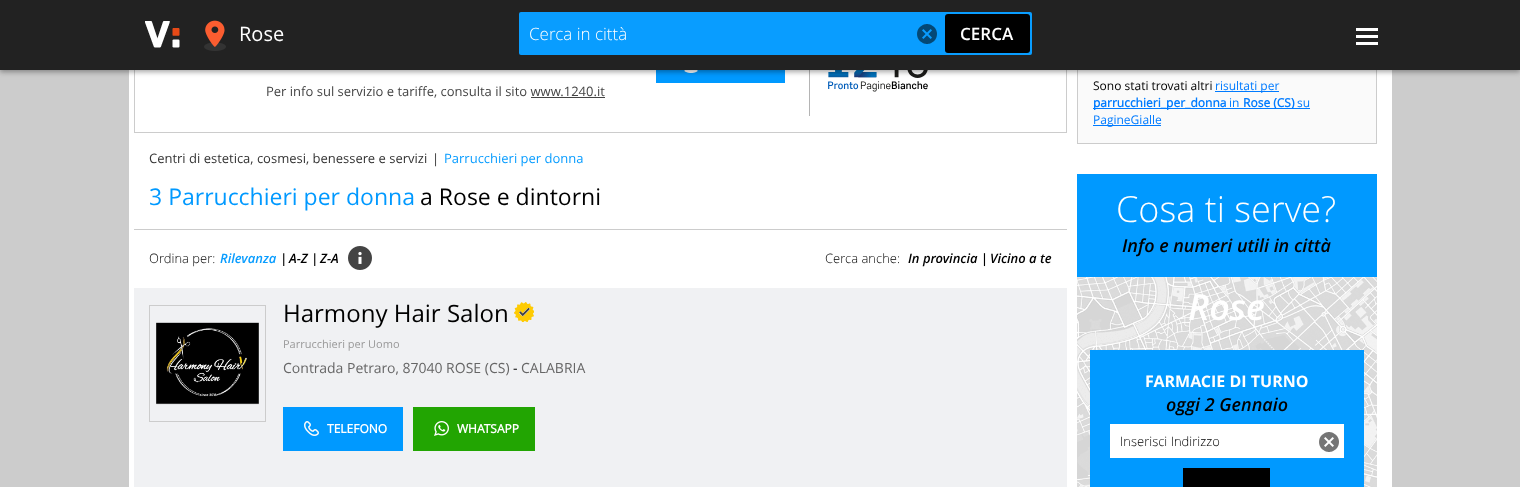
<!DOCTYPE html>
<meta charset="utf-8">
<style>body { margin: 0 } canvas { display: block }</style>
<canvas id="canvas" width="1520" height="487"></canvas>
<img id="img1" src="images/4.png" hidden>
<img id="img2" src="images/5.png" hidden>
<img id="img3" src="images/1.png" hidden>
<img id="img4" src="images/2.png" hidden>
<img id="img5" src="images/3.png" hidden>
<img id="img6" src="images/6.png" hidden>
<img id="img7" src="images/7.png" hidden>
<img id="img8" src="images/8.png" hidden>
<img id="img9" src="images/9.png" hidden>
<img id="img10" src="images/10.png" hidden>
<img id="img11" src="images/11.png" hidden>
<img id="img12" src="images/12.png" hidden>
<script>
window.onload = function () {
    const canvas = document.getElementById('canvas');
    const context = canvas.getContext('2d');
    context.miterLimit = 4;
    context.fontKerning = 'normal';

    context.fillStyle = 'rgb(204, 204, 204)';
    context.fillRect(0, 0, 1520, 487);
    context.fillStyle = 'rgb(255, 255, 255)';
    context.fillRect(129, 70, 1263, 417);
    context.strokeStyle = 'rgb(204, 204, 204)';
    context.strokeRect(134.5, 3.5, 932, 129);
    context.fillStyle = 'rgb(0, 153, 255)';
    context.fillRect(656, 70, 129, 13);
    context.drawImage(document.getElementById('img1'), 684, 70, 14, 3);
    context.fillStyle = 'rgb(180, 180, 180)';
    context.fillRect(809, 70, 1, 46);
    context.drawImage(document.getElementById('img2'), 828, 70, 100, 22);
    context.fillStyle = 'rgb(250, 250, 250)';
    context.fillRect(1078, 70, 298, 73);
    context.fillStyle = 'rgb(204, 204, 204)';
    context.fillRect(1376, 70, 1, 74);
    context.fillRect(1077, 143, 300, 1);
    context.fillRect(1077, 70, 1, 74);
    context.fillStyle = 'rgba(0, 0, 0, 0.12)';
    context.filter = 'blur(3px)';
    context.beginPath();
    context.rect(0, 2, 1520, 70);
    context.fill();
    context.filter = 'none';
    context.fillStyle = 'rgba(0, 0, 0, 0.24)';
    context.filter = 'blur(2px)';
    context.beginPath();
    context.rect(0, 2, 1520, 70);
    context.fill();
    context.filter = 'none';
    context.fillStyle = 'rgb(34, 34, 34)';
    context.fillRect(0, 0, 1520, 70);
    context.drawImage(document.getElementById('img3'), 145, 21, 35, 27);
    context.drawImage(document.getElementById('img4'), 204, 20, 22, 31);
    context.fillStyle = 'rgb(9, 157, 255)';
    context.beginPath();
    context.roundRect(519, 12, 513, 43, 2);
    context.fill();
    context.drawImage(document.getElementById('img5'), 917, 24, 20, 20);
    context.fillStyle = 'rgb(0, 0, 0)';
    context.beginPath();
    context.roundRect(945, 14, 85, 39, 3);
    context.fill();
    context.fillStyle = 'rgb(255, 255, 255)';
    context.fillRect(1356, 28, 22, 3);
    context.fillRect(1356, 35, 22, 3);
    context.fillRect(1356, 42, 22, 3);
    context.fillStyle = 'rgb(68, 68, 68)';
    context.fillRect(531, 97, 74, 1);
    context.fillStyle = 'rgb(204, 204, 204)';
    context.fillRect(134, 229, 933, 1);
    context.drawImage(document.getElementById('img6'), 348, 246, 24, 24);
    context.fillStyle = 'rgb(240, 241, 243)';
    context.fillRect(134, 288, 933, 199);
    context.strokeRect(149.5, 305.5, 116, 116);
    context.drawImage(document.getElementById('img7'), 156, 322, 103, 83);
    context.drawImage(document.getElementById('img8'), 514, 302, 20, 20);
    context.fillStyle = 'rgb(0, 153, 255)';
    context.fillRect(283, 407, 120, 44);
    context.drawImage(document.getElementById('img9'), 304, 421, 15, 15);
    context.fillStyle = 'rgb(34, 165, 2)';
    context.fillRect(413, 407, 122, 44);
    context.drawImage(document.getElementById('img10'), 434, 421, 15, 15);
    context.fillStyle = 'rgb(0, 123, 255)';
    context.fillRect(1215, 91, 64, 1);
    context.fillRect(1093, 108, 217, 1);
    context.fillRect(1093, 125, 68, 1);
    context.fillStyle = 'rgb(0, 153, 255)';
    context.fillRect(1077, 174, 300, 103);
    context.drawImage(document.getElementById('img11'), 1077, 277, 300, 210);
    context.fillRect(1090, 350, 274, 137);
    context.fillStyle = 'rgb(255, 255, 255)';
    context.fillRect(1110, 424, 234, 34);
    context.drawImage(document.getElementById('img12'), 1319, 432, 20, 20);
    context.fillStyle = 'rgb(0, 0, 0)';
    context.fillRect(1183, 468, 87, 19);
    context.font = '20px Open Sans';
    context.fillStyle = 'rgb(255, 255, 255)';
    context.fillText('Rose', 239, 41);
    context.font = '300 17px Open Sans';
    context.fillText('Cerca in città', 529, 40);
    context.font = '600 17px Open Sans';
    context.fillText('CERCA', 960, 40);
    context.font = '13px Open Sans';
    context.fillStyle = 'rgb(68, 68, 68)';
    context.fillText('Per info sul servizio e tariffe, consulta il sito www.1240.it', 266, 96);
    context.fillStyle = 'rgb(51, 51, 51)';
    context.fillText('Centri di estetica, cosmesi, benessere e servizi', 149, 163);
    context.fillText('|', 432, 163);
    context.fillStyle = 'rgb(9, 157, 255)';
    context.fillText('Parrucchieri per donna', 444, 163);
    context.font = '23px Open Sans';
    context.fillStyle = 'rgb(0, 153, 255)';
    context.fillText('3 Parrucchieri per donna', 149, 205);
    context.fillStyle = 'rgb(0, 0, 0)';
    context.fillText('a Rose e dintorni', 420, 205);
    context.font = '300 13px Open Sans';
    context.fillText('Ordina per:', 149, 263);
    context.font = 'italic 600 13px Open Sans';
    context.fillStyle = 'rgb(9, 157, 255)';
    context.fillText('Rilevanza', 220, 263);
    context.fillStyle = 'rgb(0, 0, 0)';
    context.fillText('|', 280, 263);
    context.fillText('A-Z |', 289, 263);
    context.fillText('Z-A', 320, 263);
    context.font = '300 13px Open Sans';
    context.fillText('Cerca anche:', 825, 263);
    context.font = 'italic 600 13px Open Sans';
    context.fillText('In provincia |', 908, 263);
    context.fillText('Vicino a te', 990, 263);
    context.font = '24px Open Sans';
    context.fillText('Harmony Hair Salon', 283, 322);
    context.font = '11px Open Sans';
    context.fillStyle = 'rgb(153, 153, 153)';
    context.fillText('Parrucchieri per Uomo', 283, 348);
    context.font = '14px Open Sans';
    context.fillStyle = 'rgb(102, 102, 102)';
    context.fillText('Contrada Petraro, 87040 ROSE (CS)', 283, 373);
    context.fillStyle = 'rgb(0, 0, 0)';
    context.fillText('-', 513, 373);
    context.fillStyle = 'rgb(102, 102, 102)';
    context.fillText('CALABRIA', 521, 373);
    context.font = 'bold 12px Open Sans';
    context.fillStyle = 'rgb(255, 255, 255)';
    context.fillText('TELEFONO', 327, 433);
    context.fillText('WHATSAPP', 457, 433);
    context.font = '12px Open Sans';
    context.fillStyle = 'rgb(0, 0, 0)';
    context.fillText('Sono stati trovati altri', 1093, 90);
    context.fillStyle = 'rgb(0, 123, 255)';
    context.fillText('risultati per', 1215, 90);
    context.font = 'bold 12px Open Sans';
    context.fillText('parrucchieri_per_donna', 1093, 107);
    context.font = '12px Open Sans';
    context.fillText('in', 1229, 107);
    context.font = 'bold 12px Open Sans';
    context.fillText('Rose (CS)', 1243, 107);
    context.font = '12px Open Sans';
    context.fillText('su', 1297, 107);
    context.fillText('PagineGialle', 1093, 124);
    context.font = '300 36px Open Sans';
    context.fillStyle = 'rgb(255, 255, 255)';
    context.fillText('Cosa ti serve?', 1116, 222);
    context.font = 'italic 600 18px Open Sans';
    context.fillStyle = 'rgb(0, 0, 0)';
    context.fillText('Info e numeri utili in città', 1122, 252);
    context.font = 'italic 600 36px Open Sans';
    context.fillStyle = 'rgb(255, 255, 255)';
    context.fillText('Rose', 1188, 320);
    context.font = 'bold 16px "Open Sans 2"';
    context.fillText('FARMACIE DI TURNO', 1145, 387);
    context.font = 'italic 600 18px Open Sans';
    context.fillStyle = 'rgb(0, 0, 0)';
    context.fillText('oggi 2 Gennaio', 1166, 411);
    context.font = '300 13px Open Sans';
    context.fillText('Inserisci Indirizzo', 1120, 446);
};
</script>
